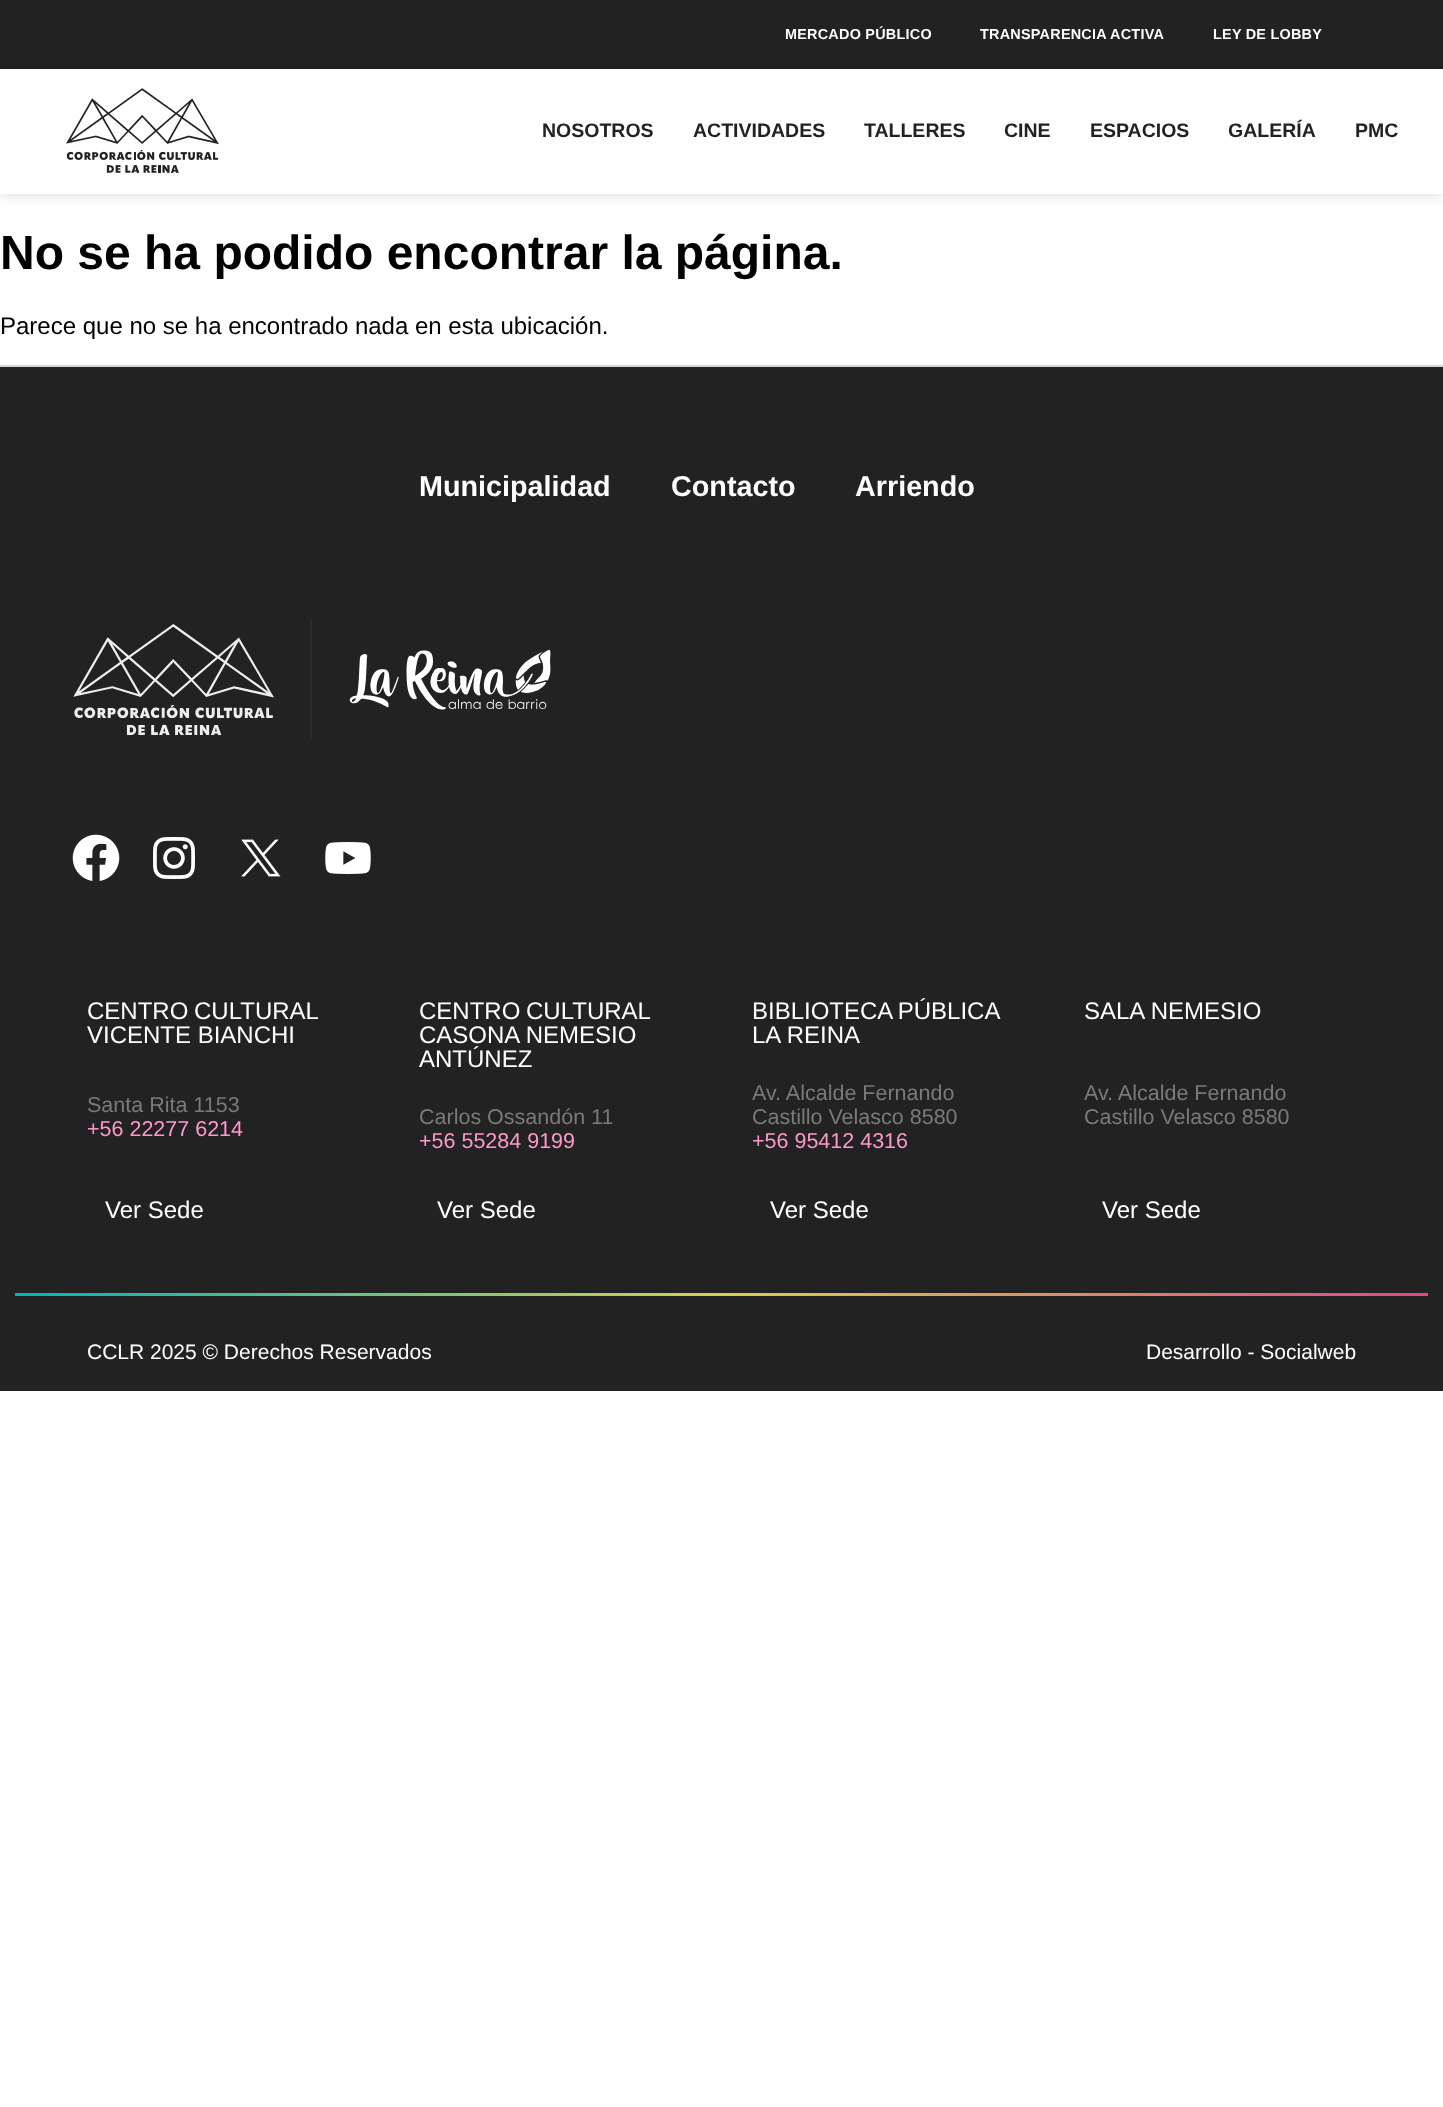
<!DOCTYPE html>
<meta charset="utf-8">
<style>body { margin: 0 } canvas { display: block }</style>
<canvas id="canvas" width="1443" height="2107"></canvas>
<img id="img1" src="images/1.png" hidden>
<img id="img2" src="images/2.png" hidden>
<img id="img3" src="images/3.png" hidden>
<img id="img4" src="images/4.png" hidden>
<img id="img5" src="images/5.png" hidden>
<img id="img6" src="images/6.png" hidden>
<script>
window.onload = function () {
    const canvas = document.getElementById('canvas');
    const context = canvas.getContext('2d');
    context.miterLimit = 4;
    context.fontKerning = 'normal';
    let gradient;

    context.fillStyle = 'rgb(255, 255, 255)';
    context.fillRect(0, 0, 1443, 2107);
    context.fillStyle = 'rgb(34, 34, 34)';
    context.fillRect(0, 0, 1443, 69);
    context.fillStyle = 'rgba(3, 2, 9, 0.16)';
    context.filter = 'blur(7.5px)';
    context.beginPath();
    context.rect(0, 69, 1443, 125);
    context.fill();
    context.filter = 'none';
    context.fillStyle = 'rgb(255, 255, 255)';
    context.fillRect(0, 69, 1443, 125);
    context.drawImage(document.getElementById('img1'), 66, 88, 153, 85);
    context.fillStyle = 'rgb(34, 34, 34)';
    context.fillRect(0, 367, 1443, 1024);
    context.fillStyle = 'rgb(213, 213, 213)';
    context.fillRect(0, 365, 1443, 2);
    context.drawImage(document.getElementById('img2'), 73, 618, 478, 123);
    context.drawImage(document.getElementById('img3'), 72, 834, 48, 47);
    context.drawImage(document.getElementById('img4'), 153, 837, 42, 42);
    context.drawImage(document.getElementById('img5'), 241, 839, 40, 38);
    context.drawImage(document.getElementById('img6'), 325, 842, 46, 32);
    gradient = context.createLinearGradient(15, 1295, 1428, 1295);
    gradient.addColorStop(0, 'rgb(0, 181, 185)');
    gradient.addColorStop(0.5, 'rgb(214, 209, 75)');
    gradient.addColorStop(1, 'rgb(228, 69, 136)');
    context.fillStyle = gradient;
    context.fillRect(15, 1293, 1413, 3);
    context.letterSpacing = '0.25px';
    context.font = 'bold 14.4px Liberation Sans';
    context.fillStyle = 'rgb(255, 255, 255)';
    context.fillText('MERCADO PÚBLICO', 785, 39);
    context.fillText('TRANSPARENCIA ACTIVA', 980, 39);
    context.fillText('LEY DE LOBBY', 1213, 39);
    context.letterSpacing = '0px';
    context.font = 'bold 19.5px Liberation Sans';
    context.fillStyle = 'rgb(34, 34, 34)';
    context.fillText('NOSOTROS', 542, 137);
    context.fillText('ACTIVIDADES', 693, 137);
    context.fillText('TALLERES', 864, 137);
    context.fillText('CINE', 1004, 137);
    context.fillText('ESPACIOS', 1090, 137);
    context.fillText('GALERÍA', 1228, 137);
    context.fillText('PMC', 1355, 137);
    context.font = 'bold 48px Liberation Sans';
    context.fillStyle = 'rgb(0, 0, 0)';
    context.fillText('No se ha podido encontrar la página.', 0, 269);
    context.font = '24px Liberation Sans';
    context.fillText('Parece que no se ha encontrado nada en esta ubicación.', 0, 334);
    context.font = 'bold 28.75px Liberation Sans';
    context.fillStyle = 'rgb(255, 255, 255)';
    context.fillText('Municipalidad', 419, 496);
    context.fillText('Contacto', 671, 496);
    context.fillText('Arriendo', 855, 496);
    context.wordSpacing = '-1px';
    context.font = '24px Liberation Sans';
    context.fillText('CENTRO CULTURAL', 87, 1019);
    context.wordSpacing = '0px';
    context.fillText('VICENTE BIANCHI', 87, 1043);
    context.font = '21.5px Liberation Sans';
    context.fillStyle = 'rgb(122, 122, 122)';
    context.fillText('Santa Rita 1153', 87, 1112);
    context.fillStyle = 'rgb(255, 153, 204)';
    context.fillText('+56 22277 6214', 87, 1136);
    context.font = '24px Liberation Sans';
    context.fillStyle = 'rgb(255, 255, 255)';
    context.fillText('Ver Sede', 105, 1218);
    context.wordSpacing = '-1px';
    context.fillText('CENTRO CULTURAL', 419, 1019);
    context.wordSpacing = '0px';
    context.fillText('CASONA NEMESIO', 419, 1043);
    context.fillText('ANTÚNEZ', 419, 1067);
    context.font = '21.5px Liberation Sans';
    context.fillStyle = 'rgb(122, 122, 122)';
    context.fillText('Carlos Ossandón 11', 419, 1124);
    context.fillStyle = 'rgb(255, 153, 204)';
    context.fillText('+56 55284 9199', 419, 1148);
    context.font = '24px Liberation Sans';
    context.fillStyle = 'rgb(255, 255, 255)';
    context.fillText('Ver Sede', 437, 1218);
    context.wordSpacing = '-1px';
    context.fillText('BIBLIOTECA PÚBLICA', 752, 1019);
    context.wordSpacing = '0px';
    context.fillText('LA REINA', 752, 1043);
    context.font = '21.5px Liberation Sans';
    context.fillStyle = 'rgb(122, 122, 122)';
    context.fillText('Av. Alcalde Fernando', 752, 1100);
    context.fillText('Castillo Velasco 8580', 752, 1124);
    context.fillStyle = 'rgb(255, 153, 204)';
    context.fillText('+56 95412 4316', 752, 1148);
    context.font = '24px Liberation Sans';
    context.fillStyle = 'rgb(255, 255, 255)';
    context.fillText('Ver Sede', 770, 1218);
    context.fillText('SALA NEMESIO', 1084, 1019);
    context.font = '21.5px Liberation Sans';
    context.fillStyle = 'rgb(122, 122, 122)';
    context.fillText('Av. Alcalde Fernando', 1084, 1100);
    context.fillText('Castillo Velasco 8580', 1084, 1124);
    context.font = '24px Liberation Sans';
    context.fillStyle = 'rgb(255, 255, 255)';
    context.fillText('Ver Sede', 1102, 1218);
    context.font = '21px Liberation Sans';
    context.fillText('CCLR 2025 © Derechos Reservados', 87, 1359);
    context.fillText('Desarrollo - Socialweb', 1146, 1359);
};
</script>
